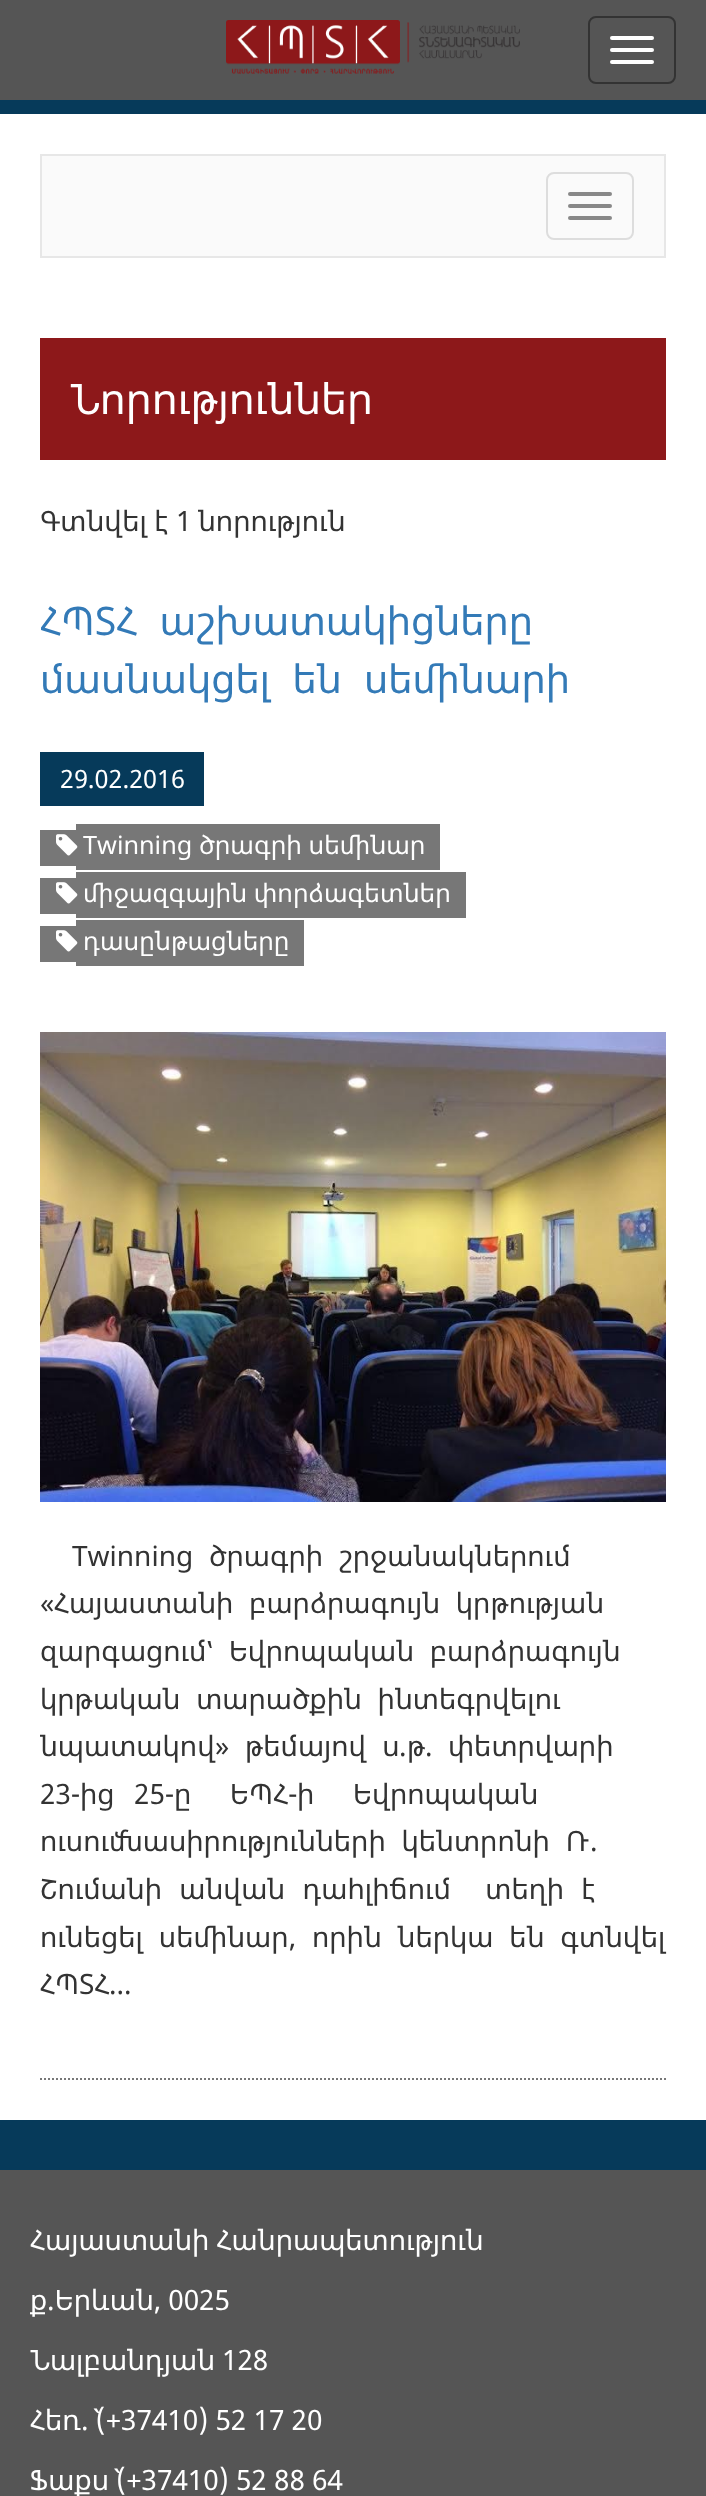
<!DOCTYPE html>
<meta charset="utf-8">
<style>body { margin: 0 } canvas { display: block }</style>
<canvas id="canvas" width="706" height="2496"></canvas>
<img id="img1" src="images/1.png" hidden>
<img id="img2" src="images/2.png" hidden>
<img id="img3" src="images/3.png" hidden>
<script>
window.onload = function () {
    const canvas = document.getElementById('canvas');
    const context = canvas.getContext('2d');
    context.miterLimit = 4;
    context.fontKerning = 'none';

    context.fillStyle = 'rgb(6, 58, 90)';
    context.fillRect(0, 0, 706, 2496);
    context.fillStyle = 'rgb(85, 85, 85)';
    context.fillRect(0, 0, 706, 100);
    context.drawImage(document.getElementById('img1'), 226, 20, 294, 54);
    context.beginPath();
    context.roundRect(589, 17, 86, 66, 7);
    context.strokeStyle = 'rgb(51, 51, 51)';
    context.lineWidth = 2;
    context.stroke();
    context.fillStyle = 'rgb(255, 255, 255)';
    context.beginPath();
    context.roundRect(610, 36, 44, 4, 2);
    context.fill();
    context.beginPath();
    context.roundRect(610, 48, 44, 4, 2);
    context.fill();
    context.beginPath();
    context.roundRect(610, 60, 44, 4, 2);
    context.fill();
    context.fillRect(0, 114, 706, 2006);
    context.fillStyle = 'rgb(250, 250, 250)';
    context.beginPath();
    context.rect(41, 155, 624, 102);
    context.fill();
    context.strokeStyle = 'rgb(231, 231, 231)';
    context.stroke();
    context.beginPath();
    context.roundRect(547, 173, 86, 66, 7);
    context.strokeStyle = 'rgb(221, 221, 221)';
    context.stroke();
    context.fillStyle = 'rgb(136, 136, 136)';
    context.beginPath();
    context.roundRect(568, 192, 44, 4, 2);
    context.fill();
    context.beginPath();
    context.roundRect(568, 204, 44, 4, 2);
    context.fill();
    context.beginPath();
    context.roundRect(568, 216, 44, 4, 2);
    context.fill();
    context.fillStyle = 'rgb(141, 24, 26)';
    context.fillRect(40, 338, 626, 122);
    context.beginPath();
    context.moveTo(40, 2079);
    context.lineTo(666, 2079);
    context.strokeStyle = 'rgb(119, 119, 119)';
    context.setLineDash([2, 2]);
    context.stroke();
    context.fillStyle = 'rgb(6, 58, 90)';
    context.fillRect(40, 752, 164, 54);
    context.fillStyle = 'rgb(119, 119, 119)';
    context.fillRect(40, 830, 36, 36);
    context.fillRect(76, 824, 364, 46);
    context.drawImage(document.getElementById('img2'), 56, 834, 22, 22);
    context.fillRect(40, 878, 36, 36);
    context.fillRect(76, 872, 390, 46);
    context.drawImage(document.getElementById('img2'), 56, 882, 22, 22);
    context.fillRect(40, 926, 36, 36);
    context.fillRect(76, 920, 228, 46);
    context.drawImage(document.getElementById('img2'), 56, 930, 22, 22);
    context.drawImage(document.getElementById('img3'), 40, 1032, 626, 470);
    context.fillStyle = 'rgb(85, 85, 85)';
    context.fillRect(0, 2170, 706, 326);
    context.font = '42px Noto Sans Armenian';
    context.fillStyle = 'rgb(255, 255, 255)';
    context.fillText('Նորություններ', 70, 414);
    context.font = '28px Noto Sans Armenian';
    context.fillStyle = 'rgb(51, 51, 51)';
    context.fillText('Գտնվել է', 40, 531);
    context.font = '28px Noto Sans';
    context.fillText('1', 176, 531);
    context.font = '28px Noto Sans Armenian';
    context.fillText('նորություն', 198, 531);
    context.wordSpacing = '12px';
    context.font = '39.25px Noto Sans Armenian';
    context.fillStyle = 'rgb(51, 122, 183)';
    context.fillText('ՀՊՏՀ աշխատակիցները', 40, 635);
    context.fillText('մասնակցել են սեմինարի', 40, 693);
    context.wordSpacing = '0px';
    context.font = '25.25px Noto Sans';
    context.fillStyle = 'rgb(255, 255, 255)';
    context.fillText('29.02.2016', 60, 788);
    context.fillText('Twinning', 83, 854);
    context.font = '25.25px Noto Sans Armenian';
    context.fillText('ծրագրի սեմինար', 199, 854);
    context.fillText('միջազգային փորձագետներ', 83, 902);
    context.fillText('դասընթացները', 83, 950);
    context.font = '28px Noto Sans';
    context.fillStyle = 'rgb(51, 51, 51)';
    context.fillText('Twinning', 72, 1566);
    context.wordSpacing = '8.5px';
    context.font = '28px Noto Sans Armenian';
    context.fillText('ծրագրի շրջանակներում', 209, 1566);
    context.wordSpacing = '0px';
    context.font = '28px Noto Sans';
    context.fillText('«', 40, 1613);
    context.wordSpacing = '8.5px';
    context.font = '28px Noto Sans Armenian';
    context.fillText('Հայաստանի բարձրագույն կրթության', 54, 1613);
    context.fillText('զարգացում՝ Եվրոպական բարձրագույն', 40, 1661);
    context.fillText('կրթական տարածքին ինտեգրվելու', 40, 1709);
    context.wordSpacing = '0px';
    context.fillText('նպատակով', 40, 1756);
    context.font = '28px Noto Sans';
    context.fillText('»', 215, 1756);
    context.wordSpacing = '8.5px';
    context.font = '28px Noto Sans Armenian';
    context.fillText('թեմայով ս', 245, 1756);
    context.wordSpacing = '0px';
    context.font = '28px Noto Sans';
    context.fillText('.', 399, 1756);
    context.font = '28px Noto Sans Armenian';
    context.fillText('թ', 407, 1756);
    context.font = '28px Noto Sans';
    context.fillText('.', 425, 1756);
    context.font = '28px Noto Sans Armenian';
    context.fillText('փետրվարի', 448, 1756);
    context.font = '28px Noto Sans';
    context.fillText('23-', 40, 1804);
    context.font = '28px Noto Sans Armenian';
    context.fillText('ից', 80, 1804);
    context.font = '28px Noto Sans';
    context.fillText('25-', 134, 1804);
    context.wordSpacing = '12px';
    context.font = '28px Noto Sans Armenian';
    context.fillText('ը  ԵՊՀ', 174, 1804);
    context.wordSpacing = '0px';
    context.font = '28px Noto Sans';
    context.fillText('-', 288, 1804);
    context.wordSpacing = '12px';
    context.font = '28px Noto Sans Armenian';
    context.fillText('ի  Եվրոպական', 297, 1804);
    context.wordSpacing = '8.5px';
    context.fillText('ուսումնասիրությունների կենտրոնի Ռ', 40, 1851);
    context.wordSpacing = '0px';
    context.font = '28px Noto Sans';
    context.fillText('.', 590, 1851);
    context.wordSpacing = '10px';
    context.font = '28px Noto Sans Armenian';
    context.fillText('Շումանի անվան դահլիճում  տեղի է', 40, 1899);
    context.wordSpacing = '8.5px';
    context.fillText('ունեցել սեմինար', 40, 1947);
    context.wordSpacing = '0px';
    context.font = '28px Noto Sans';
    context.fillText(',', 289, 1947);
    context.wordSpacing = '8.5px';
    context.font = '28px Noto Sans Armenian';
    context.fillText('որին ներկա են գտնվել', 312, 1947);
    context.wordSpacing = '0px';
    context.fillText('ՀՊՏՀ', 40, 1994);
    context.font = '28px Noto Sans';
    context.fillText('...', 109, 1994);
    context.font = '28px Noto Sans Armenian';
    context.fillStyle = 'rgb(255, 255, 255)';
    context.fillText('Հայաստանի Հանրապետություն', 30, 2250);
    context.fillText('ք Երևան', 30, 2310);
    context.font = '28px Noto Sans';
    context.fillText(', 0025', 154, 2310);
    context.fillText('.', 47, 2310);
    context.font = '28px Noto Sans Armenian';
    context.fillText('Նալբանդյան', 30, 2370);
    context.font = '28px Noto Sans';
    context.fillText('128', 222, 2370);
    context.font = '28px Noto Sans Armenian';
    context.fillText('Հեռ', 30, 2430);
    context.font = '28px Noto Sans';
    context.fillText('.` (+37410) 52 17 20', 81, 2430);
    context.font = '28px Noto Sans Armenian';
    context.fillText('Ֆաքս', 30, 2490);
    context.font = '28px Noto Sans';
    context.fillText('` (+37410) 52 88 64', 109, 2490);
};
</script>
